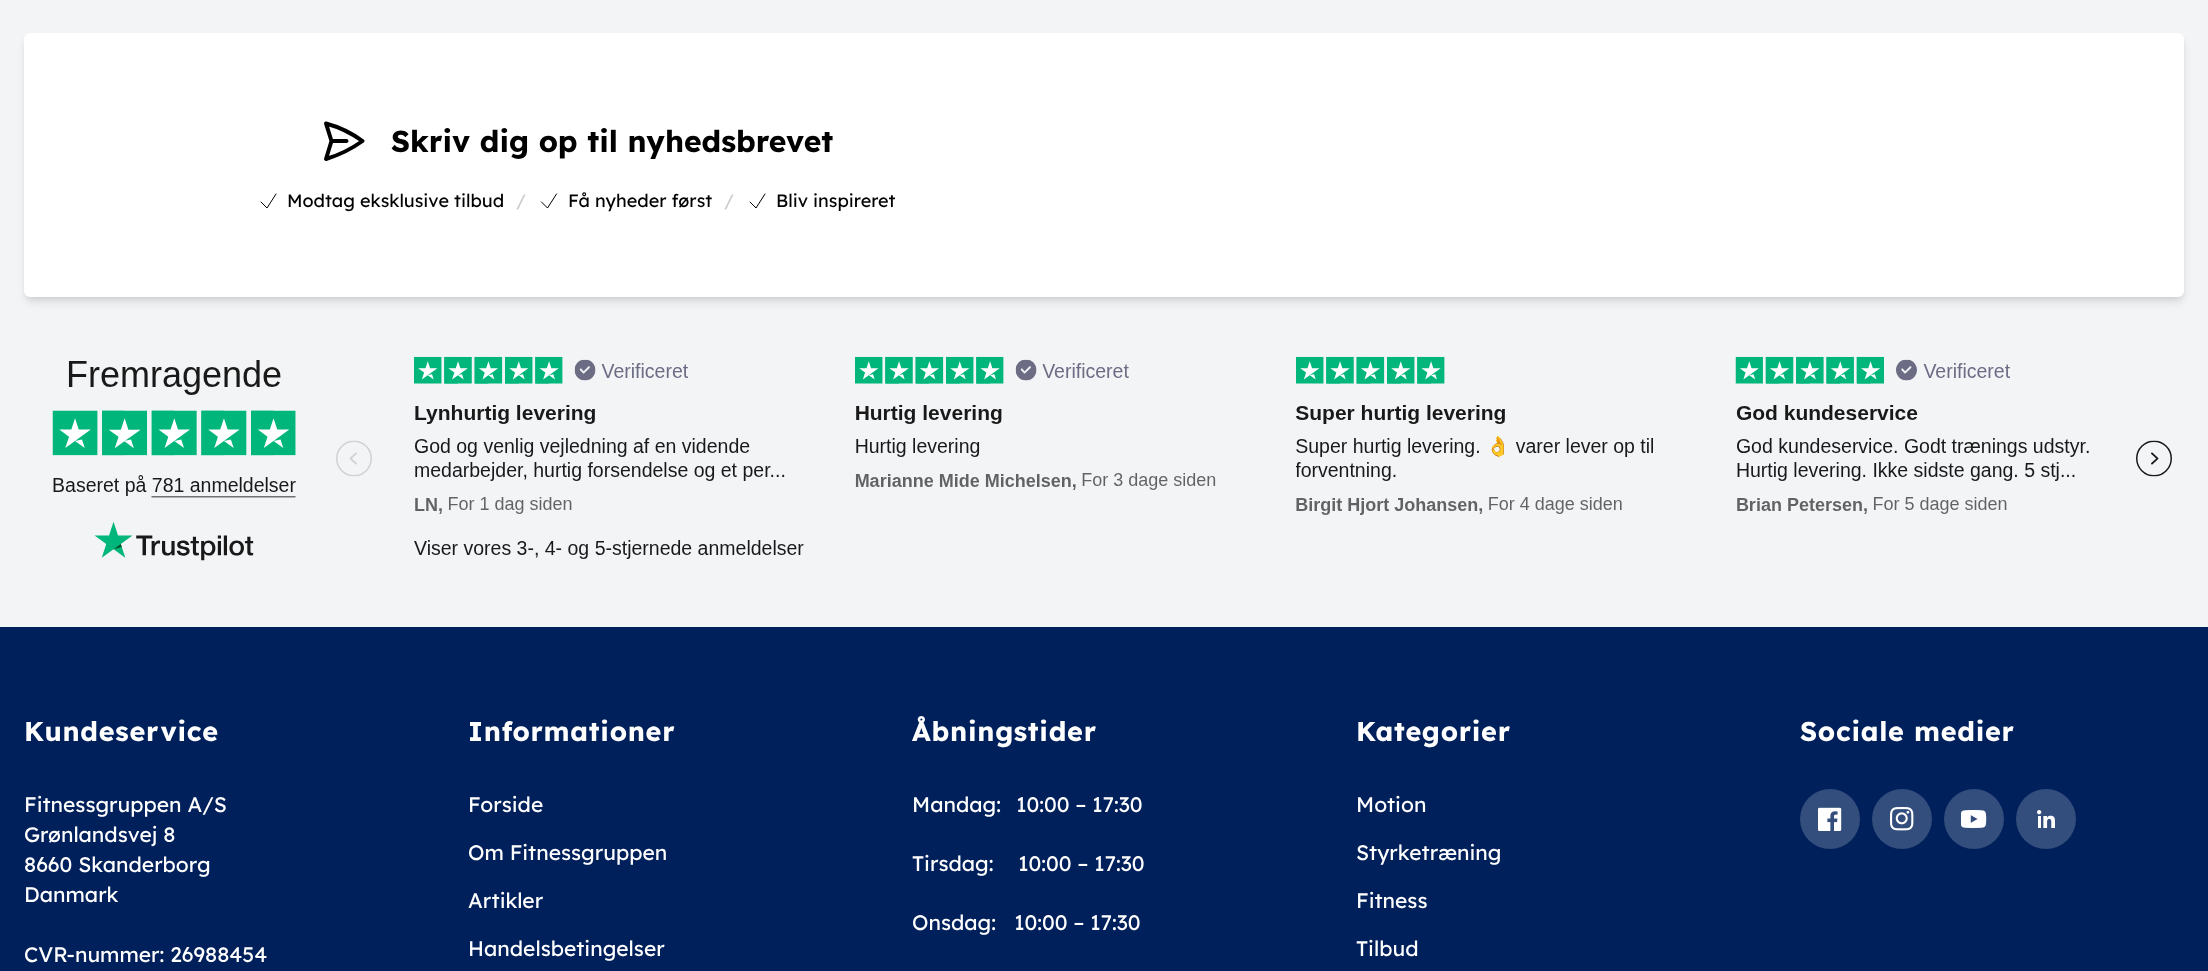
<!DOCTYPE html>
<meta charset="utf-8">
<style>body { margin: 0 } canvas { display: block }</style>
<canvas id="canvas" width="2208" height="971"></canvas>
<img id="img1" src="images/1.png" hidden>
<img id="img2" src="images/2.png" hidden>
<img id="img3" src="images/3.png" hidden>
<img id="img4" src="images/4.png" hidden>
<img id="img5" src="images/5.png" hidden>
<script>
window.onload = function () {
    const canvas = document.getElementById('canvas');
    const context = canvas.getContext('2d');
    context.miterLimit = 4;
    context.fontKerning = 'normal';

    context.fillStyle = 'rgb(243, 244, 246)';
    context.fillRect(0, 0, 2208, 971);
    context.fillStyle = 'rgba(0, 0, 0, 0.1)';
    context.filter = 'blur(3px)';
    context.beginPath();
    context.roundRect(27, 39, 2154, 258, 3);
    context.fill();
    context.filter = 'none';
    context.filter = 'blur(4.5px)';
    context.beginPath();
    context.roundRect(26, 41, 2157, 261, 5);
    context.fill();
    context.filter = 'none';
    context.fillStyle = 'rgb(255, 255, 255)';
    context.beginPath();
    context.roundRect(24, 33, 2160, 264, 6);
    context.fill();
    context.beginPath();
    context.moveTo(331.5, 141);
    context.lineTo(326, 123.5);
    context.bezierCurveTo(339, 127, 351.5, 133, 362.5, 141);
    context.bezierCurveTo(351.5, 149, 339, 155, 326, 159);
    context.closePath();
    context.moveTo(331.5, 141);
    context.lineTo(346.5, 141);
    context.strokeStyle = 'rgb(0, 0, 0)';
    context.lineWidth = 4;
    context.lineCap = 'round';
    context.lineJoin = 'round';
    context.stroke();
    context.beginPath();
    context.moveTo(261, 202);
    context.lineTo(267, 208);
    context.lineTo(276, 194);
    context.lineWidth = 1;
    context.stroke();
    context.beginPath();
    context.moveTo(541.5, 202);
    context.lineTo(547.5, 208);
    context.lineTo(556.5, 194);
    context.stroke();
    context.beginPath();
    context.moveTo(750, 202);
    context.lineTo(756, 208);
    context.lineTo(765, 194);
    context.stroke();
    context.drawImage(document.getElementById('img1'), 52, 356, 2120, 205);
    context.fillStyle = 'rgb(0, 32, 91)';
    context.fillRect(0, 627, 2208, 344);
    context.fillStyle = 'rgb(51, 77, 124)';
    context.beginPath();
    context.arc(1830, 819, 30, 0, 2 * Math.PI);
    context.fill();
    context.drawImage(document.getElementById('img2'), 1818, 807, 24, 24);
    context.beginPath();
    context.arc(1902, 819, 30, 0, 2 * Math.PI);
    context.fill();
    context.drawImage(document.getElementById('img3'), 1890, 807, 24, 24);
    context.beginPath();
    context.arc(1974, 819, 30, 0, 2 * Math.PI);
    context.fill();
    context.drawImage(document.getElementById('img4'), 1961, 810, 26, 18);
    context.beginPath();
    context.arc(2046, 819, 30, 0, 2 * Math.PI);
    context.fill();
    context.drawImage(document.getElementById('img5'), 2037, 810, 18, 18);
    context.font = 'bold 30px Lexend';
    context.fillStyle = 'rgb(0, 0, 0)';
    context.fillText('Skriv dig op til nyhedsbrevet', 391, 152);
    context.font = '18px Lexend';
    context.fillText('Modtag eksklusive tilbud', 287, 207);
    context.fillStyle = 'rgb(204, 204, 204)';
    context.fillText('/', 516, 207);
    context.fillStyle = 'rgb(0, 0, 0)';
    context.fillText('Få nyheder først', 568, 207);
    context.fillStyle = 'rgb(204, 204, 204)';
    context.fillText('/', 724, 207);
    context.fillStyle = 'rgb(0, 0, 0)';
    context.fillText('Bliv inspireret', 776, 207);
    context.letterSpacing = '0.75px';
    context.font = 'bold 27px Lexend';
    context.fillStyle = 'rgb(255, 255, 255)';
    context.fillText('Kundeservice', 24, 741);
    context.letterSpacing = '0px';
    context.font = '21px Lexend';
    context.fillText('Fitnessgruppen A/S', 24, 812);
    context.fillText('Grønlandsvej 8', 24, 842);
    context.fillText('8660 Skanderborg', 24, 872);
    context.fillText('Danmark', 24, 902);
    context.fillText('CVR-nummer: 26988454', 24, 962);
    context.letterSpacing = '0.75px';
    context.font = 'bold 27px Lexend';
    context.fillText('Informationer', 468, 741);
    context.letterSpacing = '0px';
    context.font = '21px Lexend';
    context.fillText('Forside', 468, 812);
    context.fillText('Om Fitnessgruppen', 468, 860);
    context.fillText('Artikler', 468, 908);
    context.fillText('Handelsbetingelser', 468, 956);
    context.letterSpacing = '0.75px';
    context.font = 'bold 27px Lexend';
    context.fillText('Åbningstider', 912, 741);
    context.letterSpacing = '0px';
    context.font = '21px Lexend';
    context.fillText('Mandag:', 912, 812);
    context.fillText('10:00 – 17:30', 1016, 812);
    context.fillText('Tirsdag:', 912, 871);
    context.fillText('10:00 – 17:30', 1018, 871);
    context.fillText('Onsdag:', 912, 930);
    context.fillText('10:00 – 17:30', 1014, 930);
    context.letterSpacing = '0.75px';
    context.font = 'bold 27px Lexend';
    context.fillText('Kategorier', 1356, 741);
    context.letterSpacing = '0px';
    context.font = '21px Lexend';
    context.fillText('Motion', 1356, 812);
    context.fillText('Styrketræning', 1356, 860);
    context.fillText('Fitness', 1356, 908);
    context.fillText('Tilbud', 1356, 956);
    context.letterSpacing = '0.75px';
    context.font = 'bold 27px Lexend';
    context.fillText('Sociale medier', 1800, 741);
};
</script>
